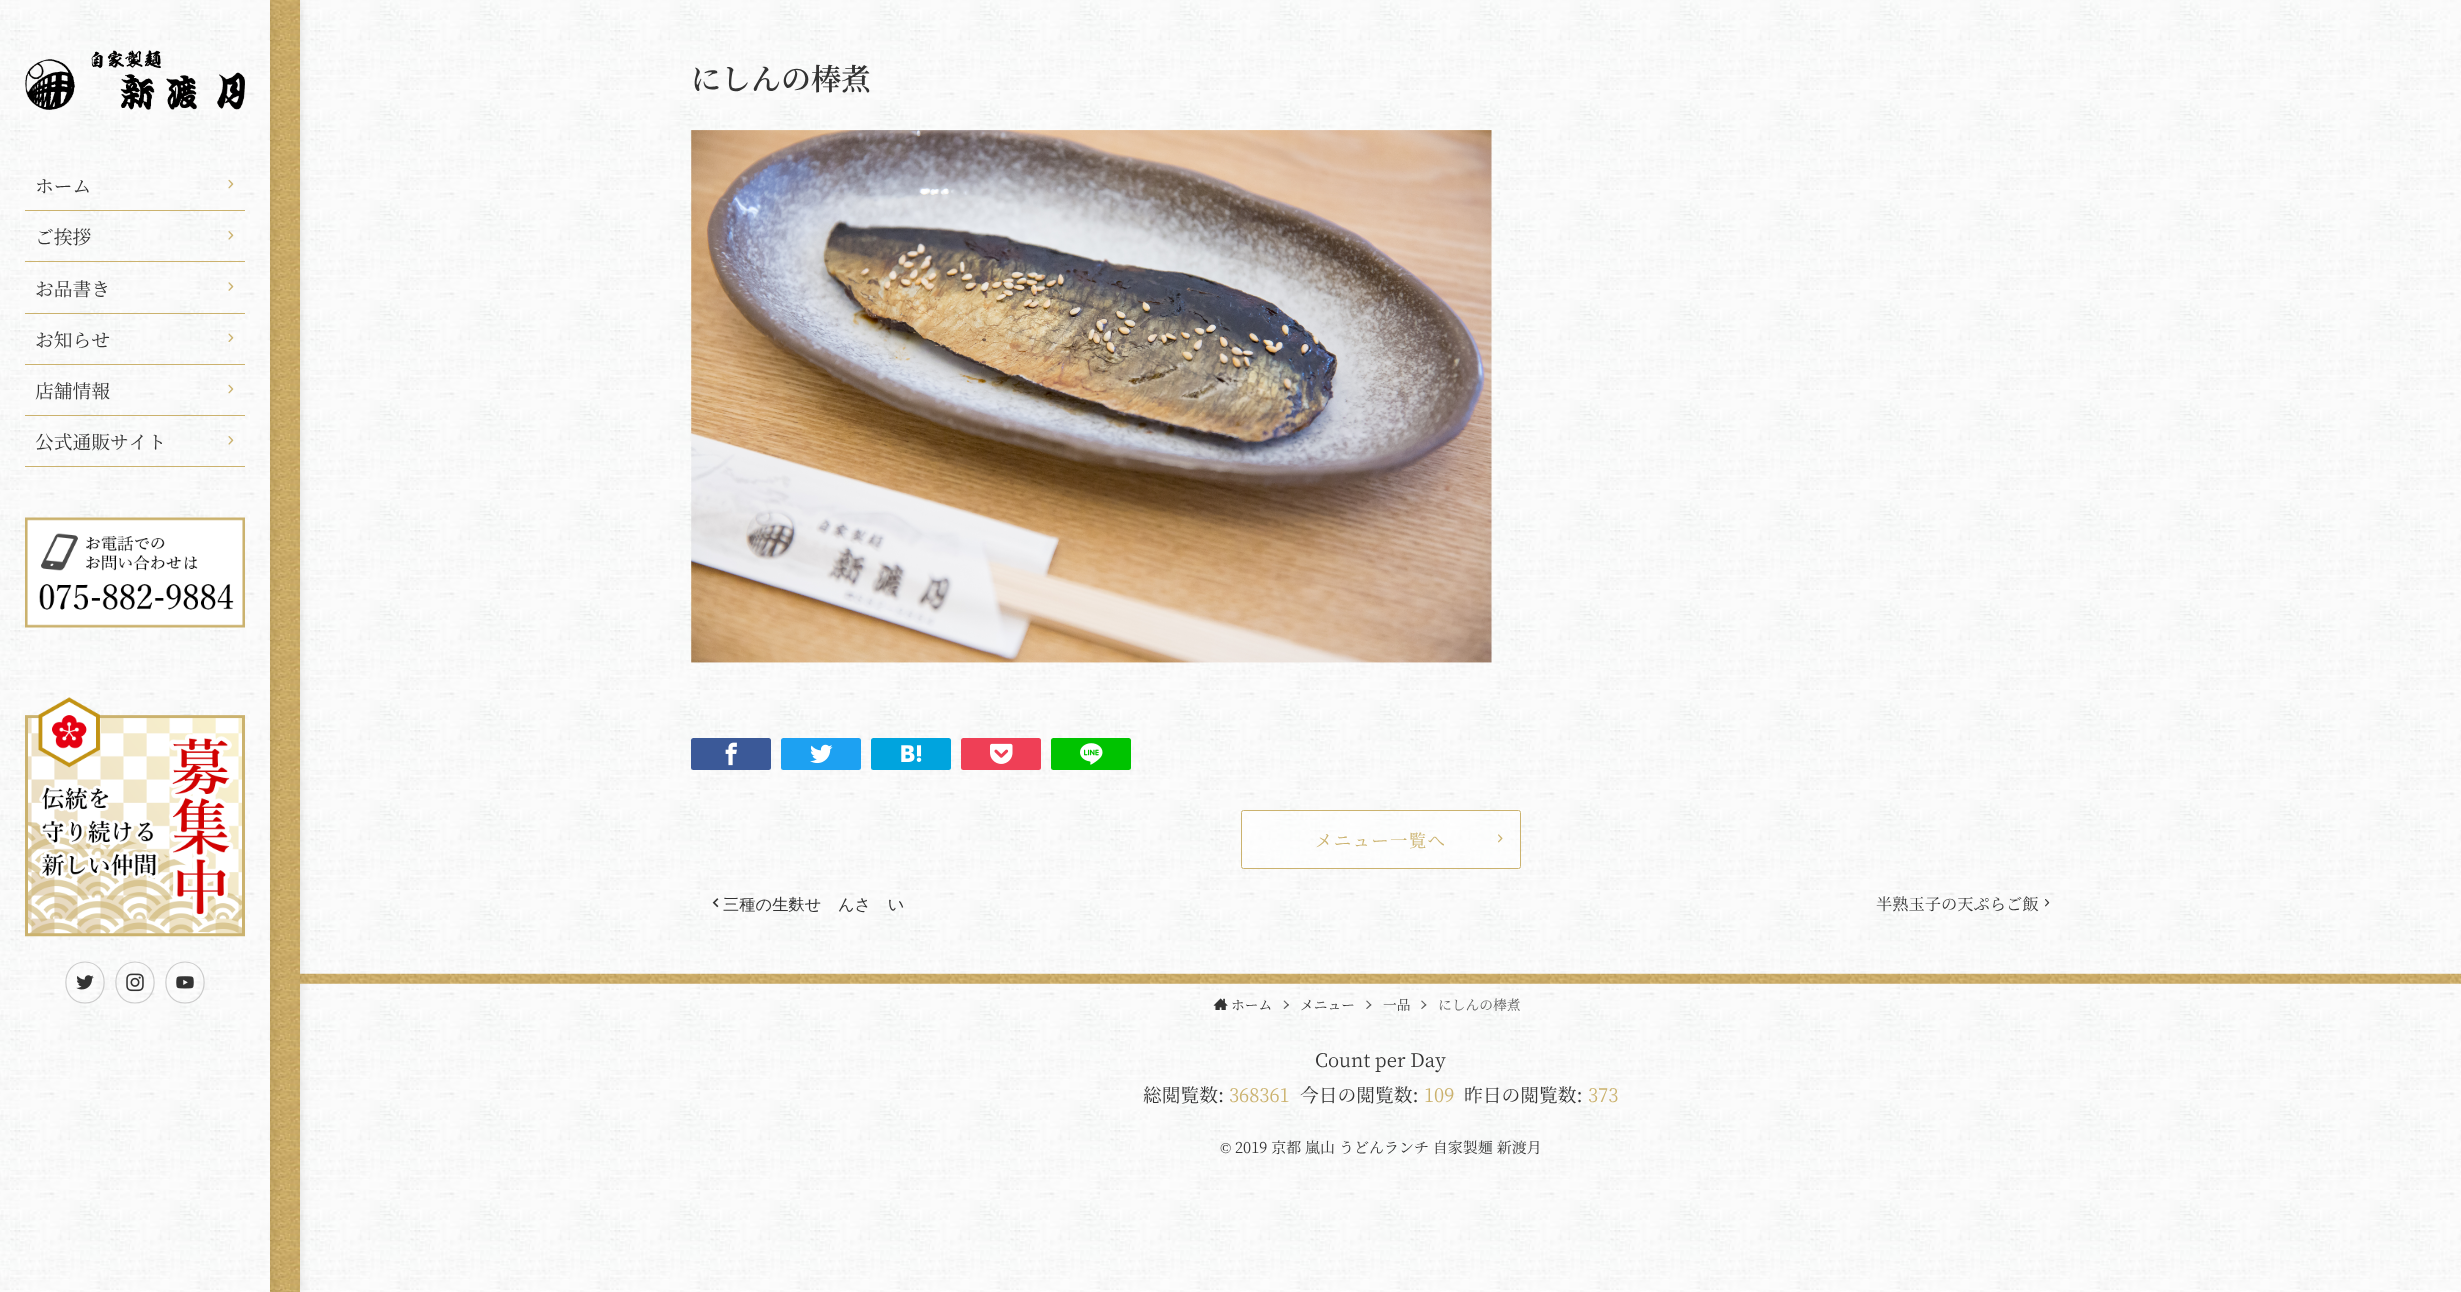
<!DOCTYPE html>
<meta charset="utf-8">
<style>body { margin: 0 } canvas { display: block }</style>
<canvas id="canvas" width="2461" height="1292"></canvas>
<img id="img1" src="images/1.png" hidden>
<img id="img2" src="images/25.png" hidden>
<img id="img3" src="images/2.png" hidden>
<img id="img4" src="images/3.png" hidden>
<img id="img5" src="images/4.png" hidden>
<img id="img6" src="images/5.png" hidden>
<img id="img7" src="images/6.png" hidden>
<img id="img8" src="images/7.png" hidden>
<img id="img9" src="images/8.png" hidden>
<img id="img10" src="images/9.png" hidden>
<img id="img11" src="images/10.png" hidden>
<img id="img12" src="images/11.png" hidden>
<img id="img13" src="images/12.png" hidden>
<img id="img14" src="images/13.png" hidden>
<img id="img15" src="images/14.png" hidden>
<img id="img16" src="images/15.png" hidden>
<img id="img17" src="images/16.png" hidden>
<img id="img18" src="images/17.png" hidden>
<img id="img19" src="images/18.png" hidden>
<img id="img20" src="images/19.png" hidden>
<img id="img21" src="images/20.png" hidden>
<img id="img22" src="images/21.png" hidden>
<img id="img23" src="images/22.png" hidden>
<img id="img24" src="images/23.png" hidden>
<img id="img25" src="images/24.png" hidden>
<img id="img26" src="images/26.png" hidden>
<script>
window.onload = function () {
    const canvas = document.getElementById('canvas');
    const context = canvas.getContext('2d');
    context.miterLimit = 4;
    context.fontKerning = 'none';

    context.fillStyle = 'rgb(255, 255, 255)';
    context.fillRect(0, 0, 2461, 1292);
    context.drawImage(document.getElementById('img1'), 300, 0, 2161, 1292);
    context.drawImage(document.getElementById('img2'), 300, 973, 2161, 11);
    context.fillStyle = 'rgba(0, 0, 0, 0.1)';
    context.filter = 'blur(5px)';
    context.beginPath();
    context.rect(1, 0, 300, 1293);
    context.fill();
    context.filter = 'none';
    context.drawImage(document.getElementById('img3'), 270, 0, 30, 1292);
    context.filter = 'blur(5px)';
    context.beginPath();
    context.rect(1, 0, 270, 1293);
    context.fill();
    context.filter = 'none';
    context.drawImage(document.getElementById('img4'), 0, 0, 270, 1292);
    context.drawImage(document.getElementById('img5'), 25, 50, 220, 60);
    context.fillStyle = 'rgb(203, 178, 110)';
    context.fillRect(25, 210, 220, 1);
    context.drawImage(document.getElementById('img6'), 228, 179, 6, 10);
    context.fillRect(25, 261, 220, 1);
    context.drawImage(document.getElementById('img7'), 228, 231, 6, 9);
    context.fillRect(25, 313, 220, 1);
    context.drawImage(document.getElementById('img8'), 228, 282, 6, 9);
    context.fillRect(25, 364, 220, 1);
    context.drawImage(document.getElementById('img9'), 228, 333, 6, 9);
    context.fillRect(25, 415, 220, 1);
    context.drawImage(document.getElementById('img10'), 228, 384, 6, 10);
    context.fillRect(25, 466, 220, 1);
    context.drawImage(document.getElementById('img11'), 228, 436, 6, 9);
    context.drawImage(document.getElementById('img12'), 25, 517, 220, 111);
    context.drawImage(document.getElementById('img13'), 25, 697, 220, 240);
    context.beginPath();
    context.moveTo(85, 962);
    context.bezierCurveTo(110.5, 962, 110.5, 1003, 85, 1003);
    context.bezierCurveTo(59.5, 1003, 59.5, 962, 85, 962);
    context.closePath();
    context.strokeStyle = 'rgb(204, 204, 204)';
    context.lineWidth = 1.2;
    context.stroke();
    context.drawImage(document.getElementById('img14'), 76, 975, 18, 15);
    context.beginPath();
    context.moveTo(135, 962);
    context.bezierCurveTo(160.5, 962, 160.5, 1003, 135, 1003);
    context.bezierCurveTo(109.5, 1003, 109.5, 962, 135, 962);
    context.closePath();
    context.stroke();
    context.drawImage(document.getElementById('img15'), 126, 973, 18, 19);
    context.beginPath();
    context.moveTo(185, 962);
    context.bezierCurveTo(210.5, 962, 210.5, 1003, 185, 1003);
    context.bezierCurveTo(159.5, 1003, 159.5, 962, 185, 962);
    context.closePath();
    context.stroke();
    context.drawImage(document.getElementById('img16'), 176, 976, 18, 13);
    context.drawImage(document.getElementById('img17'), 691, 130, 801, 533);
    context.fillStyle = 'rgb(59, 89, 152)';
    context.beginPath();
    context.roundRect(691, 738, 80, 32, 2.5);
    context.fill();
    context.drawImage(document.getElementById('img18'), 725, 742, 12, 24);
    context.fillStyle = 'rgb(29, 161, 242)';
    context.beginPath();
    context.roundRect(781, 738, 80, 32, 2.5);
    context.fill();
    context.drawImage(document.getElementById('img19'), 810, 744, 23, 20);
    context.fillStyle = 'rgb(0, 164, 222)';
    context.beginPath();
    context.roundRect(871, 738, 80, 32, 2.5);
    context.fill();
    context.drawImage(document.getElementById('img20'), 901, 745, 21, 17);
    context.fillStyle = 'rgb(239, 63, 86)';
    context.beginPath();
    context.roundRect(961, 738, 80, 32, 2.5);
    context.fill();
    context.drawImage(document.getElementById('img21'), 990, 743, 23, 21);
    context.fillStyle = 'rgb(0, 195, 0)';
    context.beginPath();
    context.roundRect(1051, 738, 80, 32, 2.5);
    context.fill();
    context.drawImage(document.getElementById('img22'), 1080, 743, 23, 22);
    context.fillStyle = 'rgba(255, 255, 255, 0.6)';
    context.beginPath();
    context.roundRect(1241.5, 810.5, 279, 58, 2);
    context.fill();
    context.strokeStyle = 'rgb(203, 178, 110)';
    context.lineWidth = 1;
    context.stroke();
    context.drawImage(document.getElementById('img23'), 1498, 834, 5, 9);
    context.drawImage(document.getElementById('img24'), 712, 898, 7, 10);
    context.drawImage(document.getElementById('img25'), 2045, 899, 5, 8);
    context.drawImage(document.getElementById('img26'), 1213, 998, 15, 12);
    context.fillStyle = 'rgba(51, 51, 51, 0.8)';
    context.beginPath();
    context.moveTo(1284.5, 1000.5);
    context.lineTo(1289, 1005);
    context.lineTo(1288, 1005.5);
    context.lineTo(1283.5, 1001);
    context.closePath();
    context.fill();
    context.beginPath();
    context.moveTo(1288, 1004);
    context.lineTo(1289, 1005);
    context.lineTo(1284.5, 1009);
    context.lineTo(1283.5, 1008.5);
    context.closePath();
    context.fill();
    context.fillStyle = 'rgb(91, 91, 91)';
    context.beginPath();
    context.moveTo(1367, 1000.5);
    context.lineTo(1371.5, 1005);
    context.lineTo(1370.5, 1005.5);
    context.lineTo(1366, 1001);
    context.closePath();
    context.fill();
    context.beginPath();
    context.moveTo(1370.5, 1004);
    context.lineTo(1371.5, 1005);
    context.lineTo(1367, 1009);
    context.lineTo(1366, 1008.5);
    context.closePath();
    context.fill();
    context.beginPath();
    context.moveTo(1422, 1000.5);
    context.lineTo(1426.5, 1005);
    context.lineTo(1425.5, 1005.5);
    context.lineTo(1421, 1001);
    context.closePath();
    context.fill();
    context.beginPath();
    context.moveTo(1425.5, 1004);
    context.lineTo(1426.5, 1005);
    context.lineTo(1422, 1009);
    context.lineTo(1421, 1008.5);
    context.closePath();
    context.fill();
    context.font = '18.75px Noto Serif CJK JP';
    context.fillStyle = 'rgb(51, 51, 51)';
    context.fillText('ホーム', 35, 193);
    context.fillText('ご挨拶', 35, 244);
    context.fillText('お品書き', 35, 296);
    context.fillText('お知らせ', 35, 347);
    context.fillText('店舗情報', 35, 398);
    context.fillText('公式通販サイト', 35, 449);
    context.font = '600 30px Noto Serif CJK JP';
    context.fillText('にしんの棒煮', 691, 90);
    context.letterSpacing = '1.25px';
    context.font = '17.5px Noto Serif CJK JP';
    context.fillStyle = 'rgb(203, 178, 110)';
    context.fillText('メニュー一覧へ', 1315, 847);
    context.letterSpacing = '0px';
    context.font = '500 16.25px WenQuanYi Zen Hei';
    context.fillStyle = 'rgb(51, 51, 51)';
    context.fillText('三種の生麩ぜんざい', 723, 910);
    context.font = '16.25px Noto Serif CJK JP';
    context.fillText('半熟玉子の天ぷらご飯', 1876, 910);
    context.font = '13.75px Noto Serif CJK JP';
    context.fillText('ホーム', 1231, 1010);
    context.fillText('メニュー', 1300, 1010);
    context.fillText('一品', 1383, 1010);
    context.fillStyle = 'rgb(91, 91, 91)';
    context.fillText('にしんの棒煮', 1438, 1010);
    context.font = '18.75px Noto Serif CJK JP';
    context.fillStyle = 'rgb(51, 51, 51)';
    context.fillText('Count per Day', 1315, 1067);
    context.fillText('総閲覧数:', 1143, 1102);
    context.fillStyle = 'rgb(203, 178, 110)';
    context.fillText('368361', 1229, 1102);
    context.fillStyle = 'rgb(51, 51, 51)';
    context.fillText('今日の閲覧数:', 1300, 1102);
    context.fillStyle = 'rgb(203, 178, 110)';
    context.fillText('109', 1424, 1102);
    context.fillStyle = 'rgb(51, 51, 51)';
    context.fillText('昨日の閲覧数:', 1464, 1102);
    context.fillStyle = 'rgb(203, 178, 110)';
    context.fillText('373', 1588, 1102);
    context.font = '15px Liberation Serif';
    context.fillStyle = 'rgb(51, 51, 51)';
    context.fillText('©', 1220, 1153);
    context.font = '15px Noto Serif CJK JP';
    context.fillText('2019 京都 嵐山 うどんランチ 自家製麺 新渡月', 1235, 1153);
};
</script>
